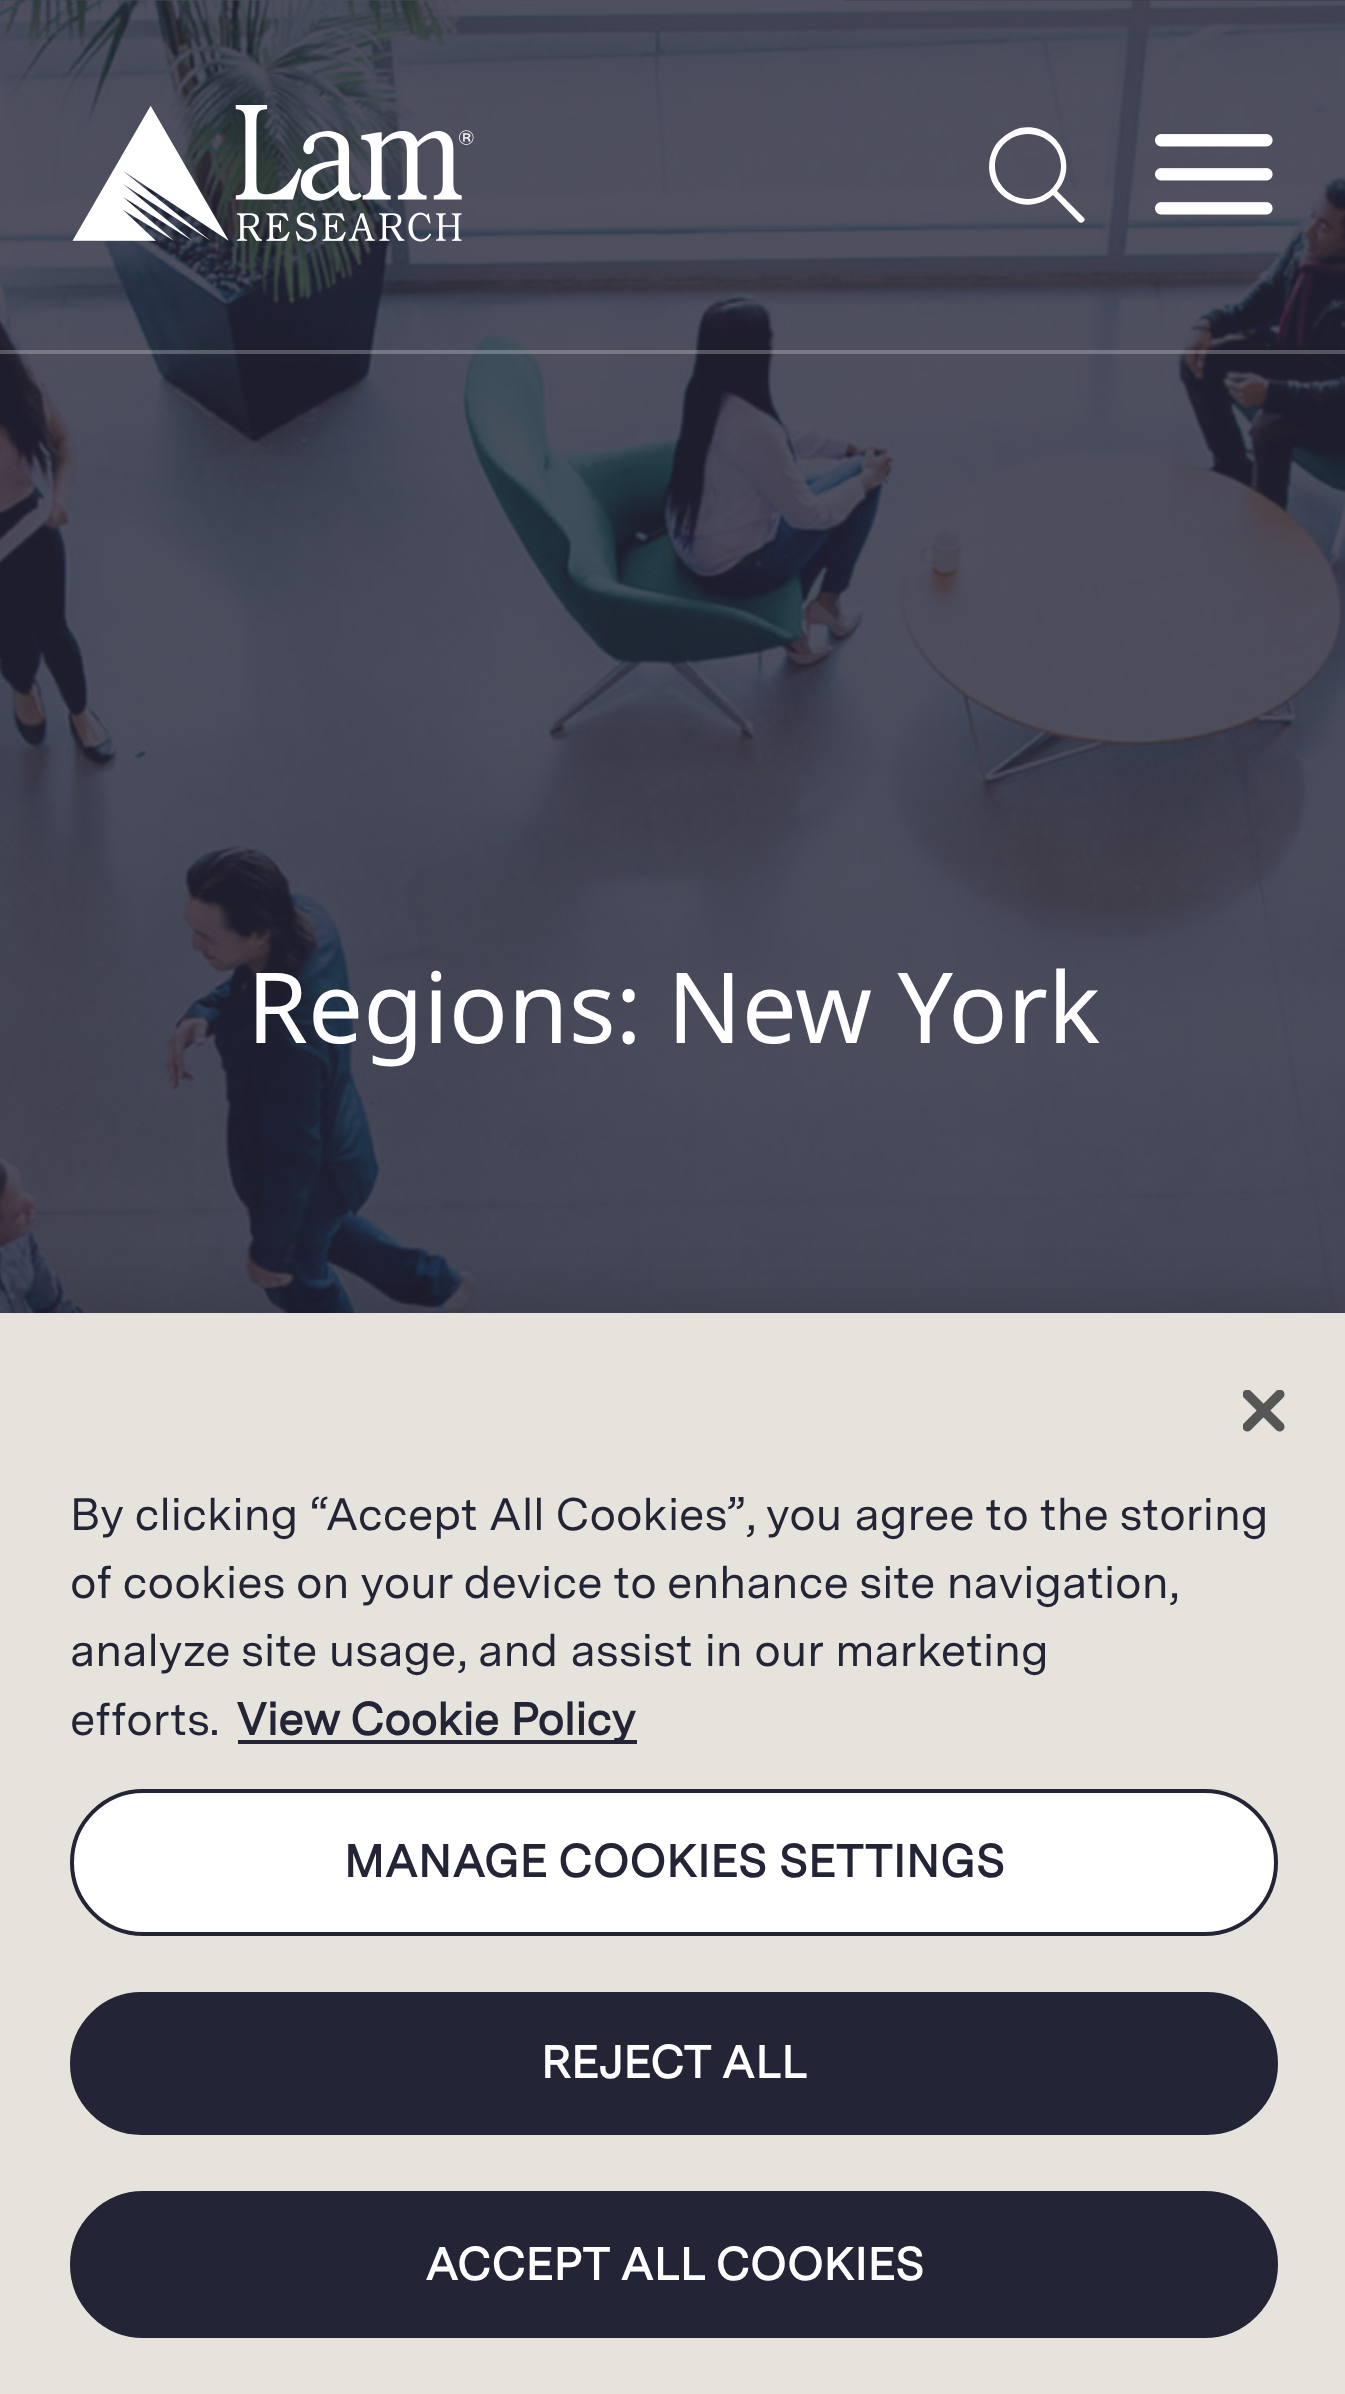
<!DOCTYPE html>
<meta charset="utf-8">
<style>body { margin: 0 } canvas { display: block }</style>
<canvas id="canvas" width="1345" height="2394"></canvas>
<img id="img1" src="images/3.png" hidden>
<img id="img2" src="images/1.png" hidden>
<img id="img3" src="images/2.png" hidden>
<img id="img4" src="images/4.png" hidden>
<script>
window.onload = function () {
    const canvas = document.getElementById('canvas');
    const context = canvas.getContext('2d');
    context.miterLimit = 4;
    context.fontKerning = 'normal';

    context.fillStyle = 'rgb(255, 255, 255)';
    context.fillRect(0, 0, 1345, 2394);
    context.drawImage(document.getElementById('img1'), 0, 0, 1345, 1313);
    context.fillStyle = 'rgba(255, 255, 255, 0.25)';
    context.fillRect(0, 350, 1345, 4);
    context.drawImage(document.getElementById('img2'), 72, 105, 402, 137);
    context.fillStyle = 'rgb(255, 255, 255)';
    context.beginPath();
    context.moveTo(1083, 222);
    context.bezierCurveTo(1082, 223, 1080, 223, 1079, 222);
    context.lineTo(1053, 195);
    context.bezierCurveTo(1026, 219, 982, 195, 990, 158);
    context.bezierCurveTo(992, 151, 995, 144, 1001, 139);
    context.bezierCurveTo(1006, 134, 1013, 130, 1020, 128);
    context.bezierCurveTo(1056, 121, 1081, 164, 1057, 191);
    context.lineTo(1084, 218);
    context.bezierCurveTo(1085, 219, 1085, 221, 1083, 222);
    context.closePath();
    context.moveTo(1061, 166);
    context.bezierCurveTo(1061, 148, 1046, 134, 1028, 134);
    context.bezierCurveTo(1010, 134, 995, 148, 995, 166);
    context.bezierCurveTo(995, 184, 1010, 199, 1028, 199);
    context.bezierCurveTo(1046, 199, 1061, 184, 1061, 166);
    context.closePath();
    context.fill();
    context.drawImage(document.getElementById('img3'), 1155, 134, 118, 81);
    context.fillStyle = 'rgba(0, 0, 0, 0.2)';
    context.filter = 'blur(31.5px)';
    context.beginPath();
    context.rect(0, 1313, 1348, 1081);
    context.fill();
    context.filter = 'none';
    context.fillStyle = 'rgb(230, 227, 220)';
    context.fillRect(0, 1313, 1345, 1081);
    context.drawImage(document.getElementById('img4'), 1243, 1390, 42, 42);
    context.fillStyle = 'rgb(36, 36, 55)';
    context.fillRect(238, 1740, 399, 4);
    context.fillStyle = 'rgb(255, 255, 255)';
    context.beginPath();
    context.roundRect(72, 1791, 1204, 143, 71.5);
    context.fill();
    context.strokeStyle = 'rgb(36, 36, 55)';
    context.lineWidth = 4;
    context.stroke();
    context.fillStyle = 'rgb(36, 36, 55)';
    context.beginPath();
    context.roundRect(72, 1994, 1204, 139, 69.5);
    context.fill();
    context.stroke();
    context.beginPath();
    context.roundRect(72, 2193, 1204, 143, 71.5);
    context.fill();
    context.stroke();
    context.font = '98px Noto Sans';
    context.fillStyle = 'rgb(255, 255, 255)';
    context.fillText('Regions: New York', 247, 1043);
    context.font = '45.5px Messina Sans';
    context.fillStyle = 'rgb(36, 36, 55)';
    context.fillText('By clicking “Accept All Cookies”, you agree to the storing', 70, 1530);
    context.wordSpacing = '-0.25px';
    context.fillText('of cookies on your device to enhance site navigation,', 70, 1598);
    context.wordSpacing = '0px';
    context.fillText('analyze site usage, and assist in our marketing', 70, 1666);
    context.fillText('efforts.', 70, 1735);
    context.font = 'bold 45.5px Messina Sans';
    context.fillText('View Cookie Policy', 236, 1735);
    context.letterSpacing = '0.5px';
    context.fillText('MANAGE COOKIES SETTINGS', 344, 1877);
    context.fillStyle = 'rgb(255, 255, 255)';
    context.fillText('REJECT ALL', 541, 2078);
    context.fillText('ACCEPT ALL COOKIES', 425, 2280);
};
</script>
